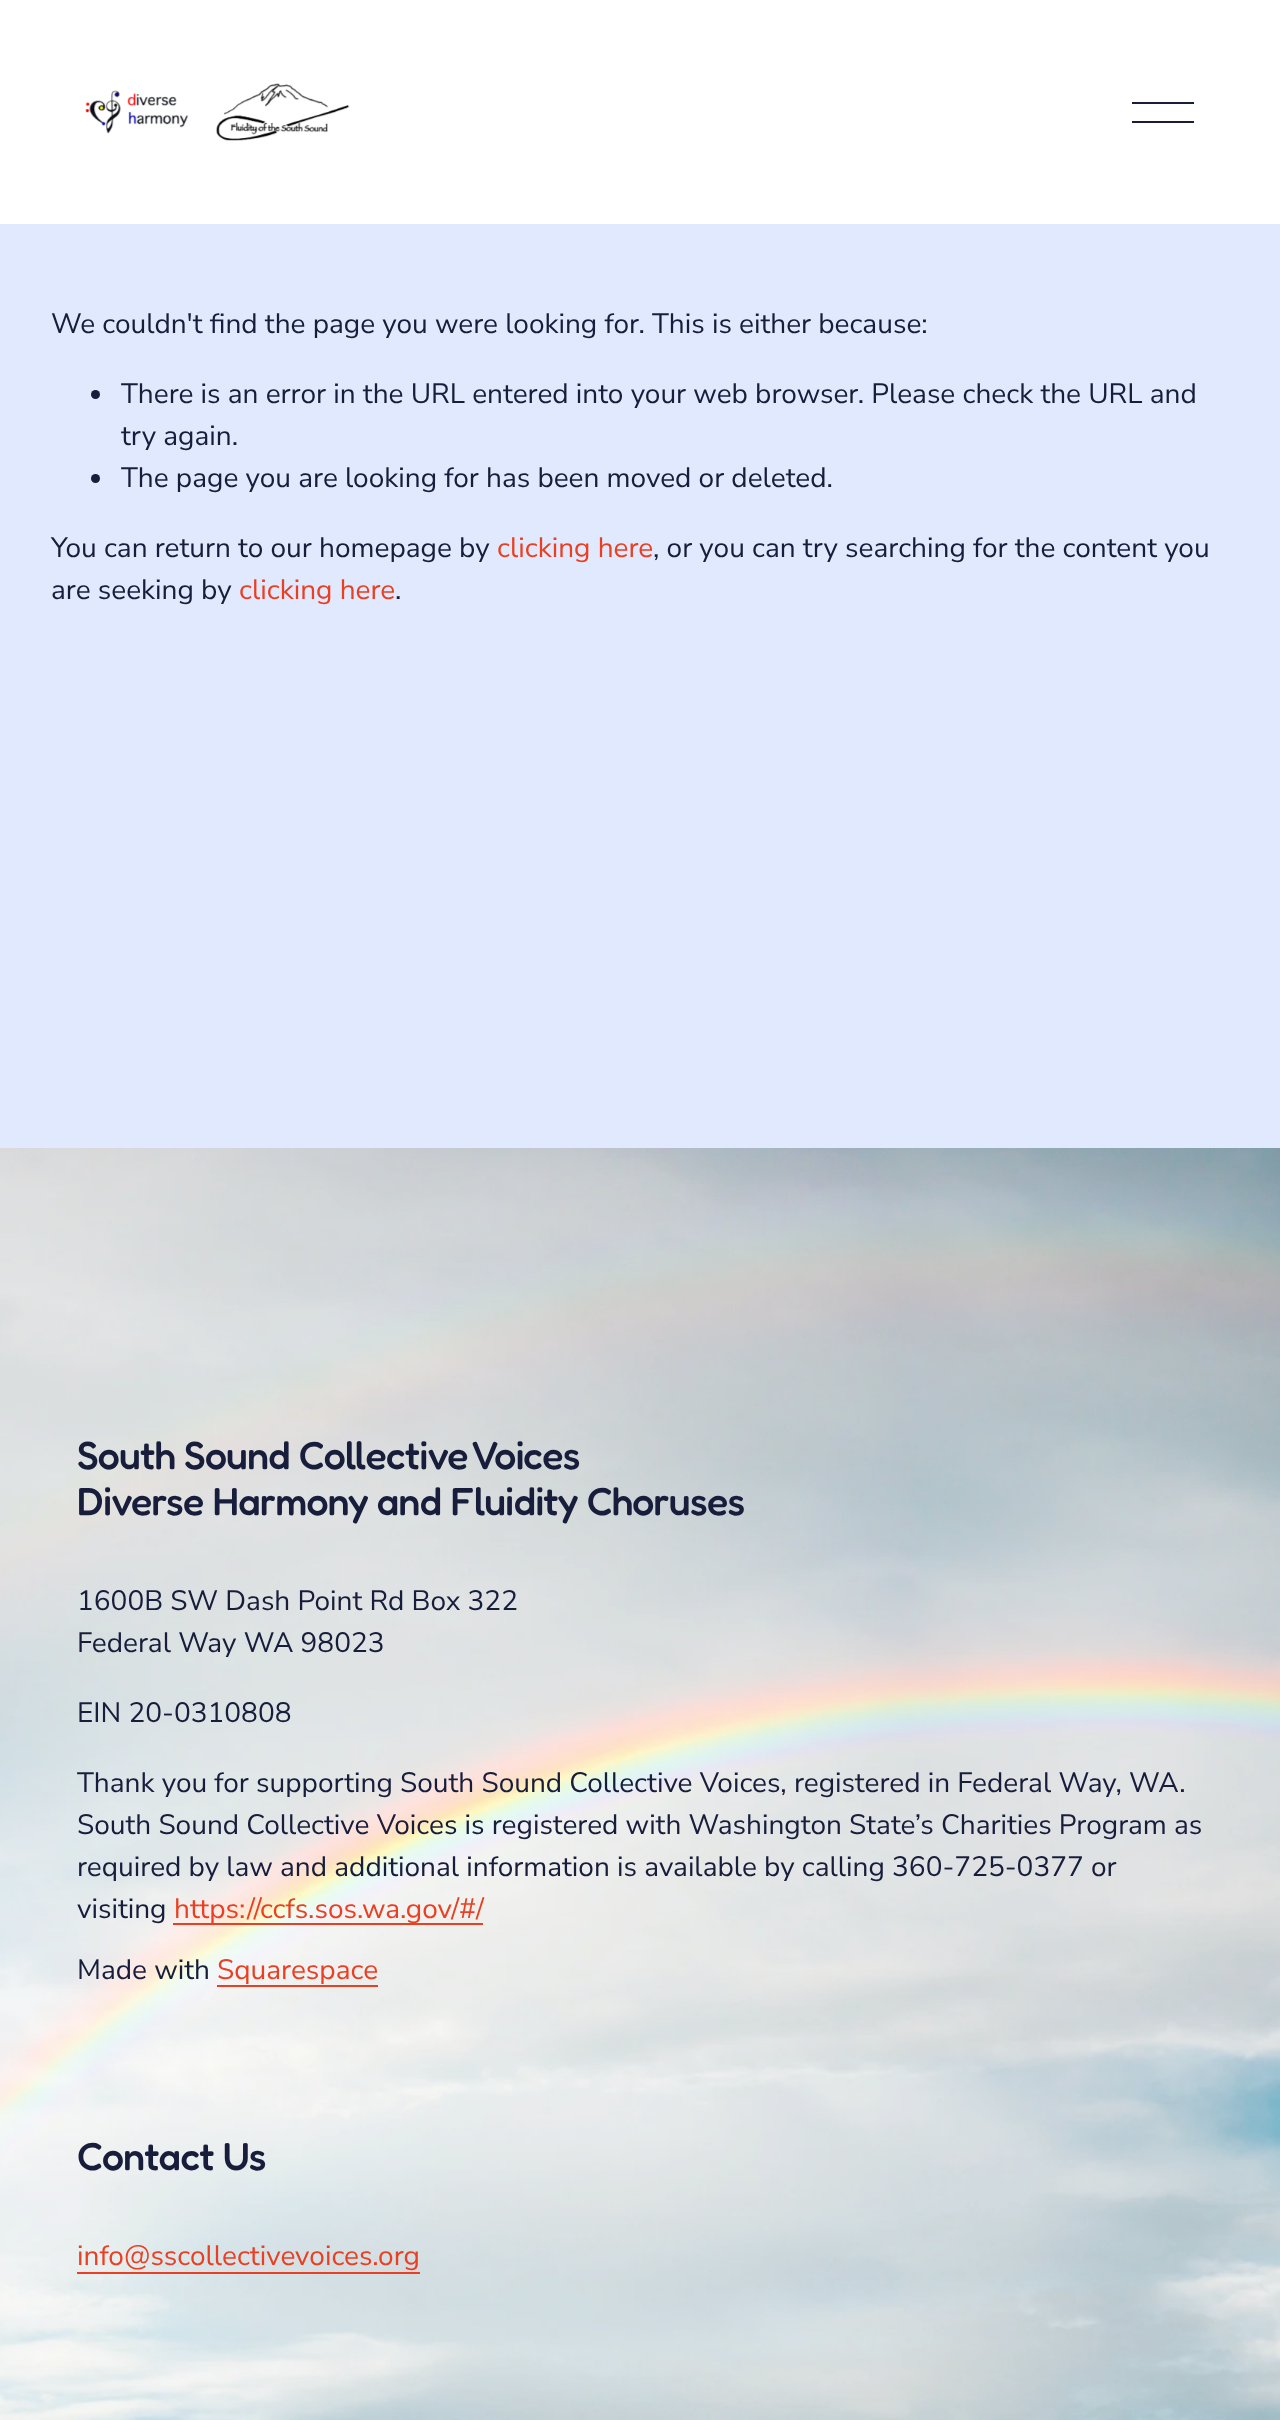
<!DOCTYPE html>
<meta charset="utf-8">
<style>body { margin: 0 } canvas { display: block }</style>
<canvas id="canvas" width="1280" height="2420"></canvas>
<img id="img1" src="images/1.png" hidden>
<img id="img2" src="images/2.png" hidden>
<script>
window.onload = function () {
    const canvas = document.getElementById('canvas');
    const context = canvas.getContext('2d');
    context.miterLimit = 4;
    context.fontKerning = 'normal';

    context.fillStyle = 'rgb(225, 233, 255)';
    context.fillRect(0, 0, 1280, 2420);
    context.fillStyle = 'rgb(255, 255, 255)';
    context.fillRect(0, 0, 1280, 224);
    context.drawImage(document.getElementById('img1'), 85, 83, 265, 58);
    context.fillStyle = 'rgb(23, 29, 58)';
    context.fillRect(1132, 102, 62, 2);
    context.fillRect(1132, 121, 62, 2);
    context.beginPath();
    context.arc(95.5, 394.5, 4.5, 0, 2 * Math.PI);
    context.fill();
    context.beginPath();
    context.arc(95.5, 478.5, 4.5, 0, 2 * Math.PI);
    context.fill();
    context.drawImage(document.getElementById('img2'), 0, 1148, 1280, 1272);
    context.fillStyle = 'rgb(234, 63, 33)';
    context.fillRect(173, 1923, 310, 2);
    context.fillRect(217, 1985, 161, 2);
    context.fillRect(77, 2272, 343, 2);
    context.font = '28px Nunito Sans';
    context.fillStyle = 'rgb(23, 29, 58)';
    context.fillText('We couldn\'t find the page you were looking for. This is either because:', 51, 333);
    context.fillText('There is an error in the URL entered into your web browser. Please check the URL and', 121, 403);
    context.fillText('try again.', 121, 445);
    context.fillText('The page you are looking for has been moved or deleted.', 121, 487);
    context.fillText('You can return to our homepage by', 51, 557);
    context.fillStyle = 'rgb(234, 63, 33)';
    context.fillText('clicking here', 497, 557);
    context.fillStyle = 'rgb(23, 29, 58)';
    context.fillText(', or you can try searching for the content you', 653, 557);
    context.fillText('are seeking by', 51, 599);
    context.fillStyle = 'rgb(234, 63, 33)';
    context.fillText('clicking here', 239, 599);
    context.fillStyle = 'rgb(23, 29, 58)';
    context.fillText('.', 395, 599);
    context.letterSpacing = '-0.8px';
    context.font = '500 39.3px Fredoka';
    context.fillText('South Sound Collective Voices', 77, 1469);
    context.fillText('Diverse Harmony and Fluidity Choruses', 77, 1515);
    context.letterSpacing = '0px';
    context.font = '28px Nunito Sans';
    context.fillText('1600B SW Dash Point Rd Box 322', 77, 1610);
    context.fillText('Federal Way WA 98023', 77, 1652);
    context.fillText('EIN 20-0310808', 77, 1722);
    context.fillText('Thank you for supporting South Sound Collective Voices, registered in Federal Way, WA.', 77, 1792);
    context.fillText('South Sound Collective Voices is registered with Washington State’s Charities Program as', 77, 1834);
    context.fillText('required by law and additional information is available by calling 360-725-0377 or', 77, 1876);
    context.fillText('visiting', 77, 1918);
    context.fillStyle = 'rgb(234, 63, 33)';
    context.fillText('https://ccfs.sos.wa.gov/#/', 174, 1918);
    context.fillStyle = 'rgb(23, 29, 58)';
    context.fillText('Made with', 77, 1979);
    context.fillStyle = 'rgb(234, 63, 33)';
    context.fillText('Squarespace', 217, 1979);
    context.letterSpacing = '-0.8px';
    context.font = '500 39.3px Fredoka';
    context.fillStyle = 'rgb(23, 29, 58)';
    context.fillText('Contact Us', 77, 2170);
    context.letterSpacing = '0px';
    context.font = '28px Nunito Sans';
    context.fillStyle = 'rgb(234, 63, 33)';
    context.fillText('info@sscollectivevoices.org', 77, 2265);
};
</script>
